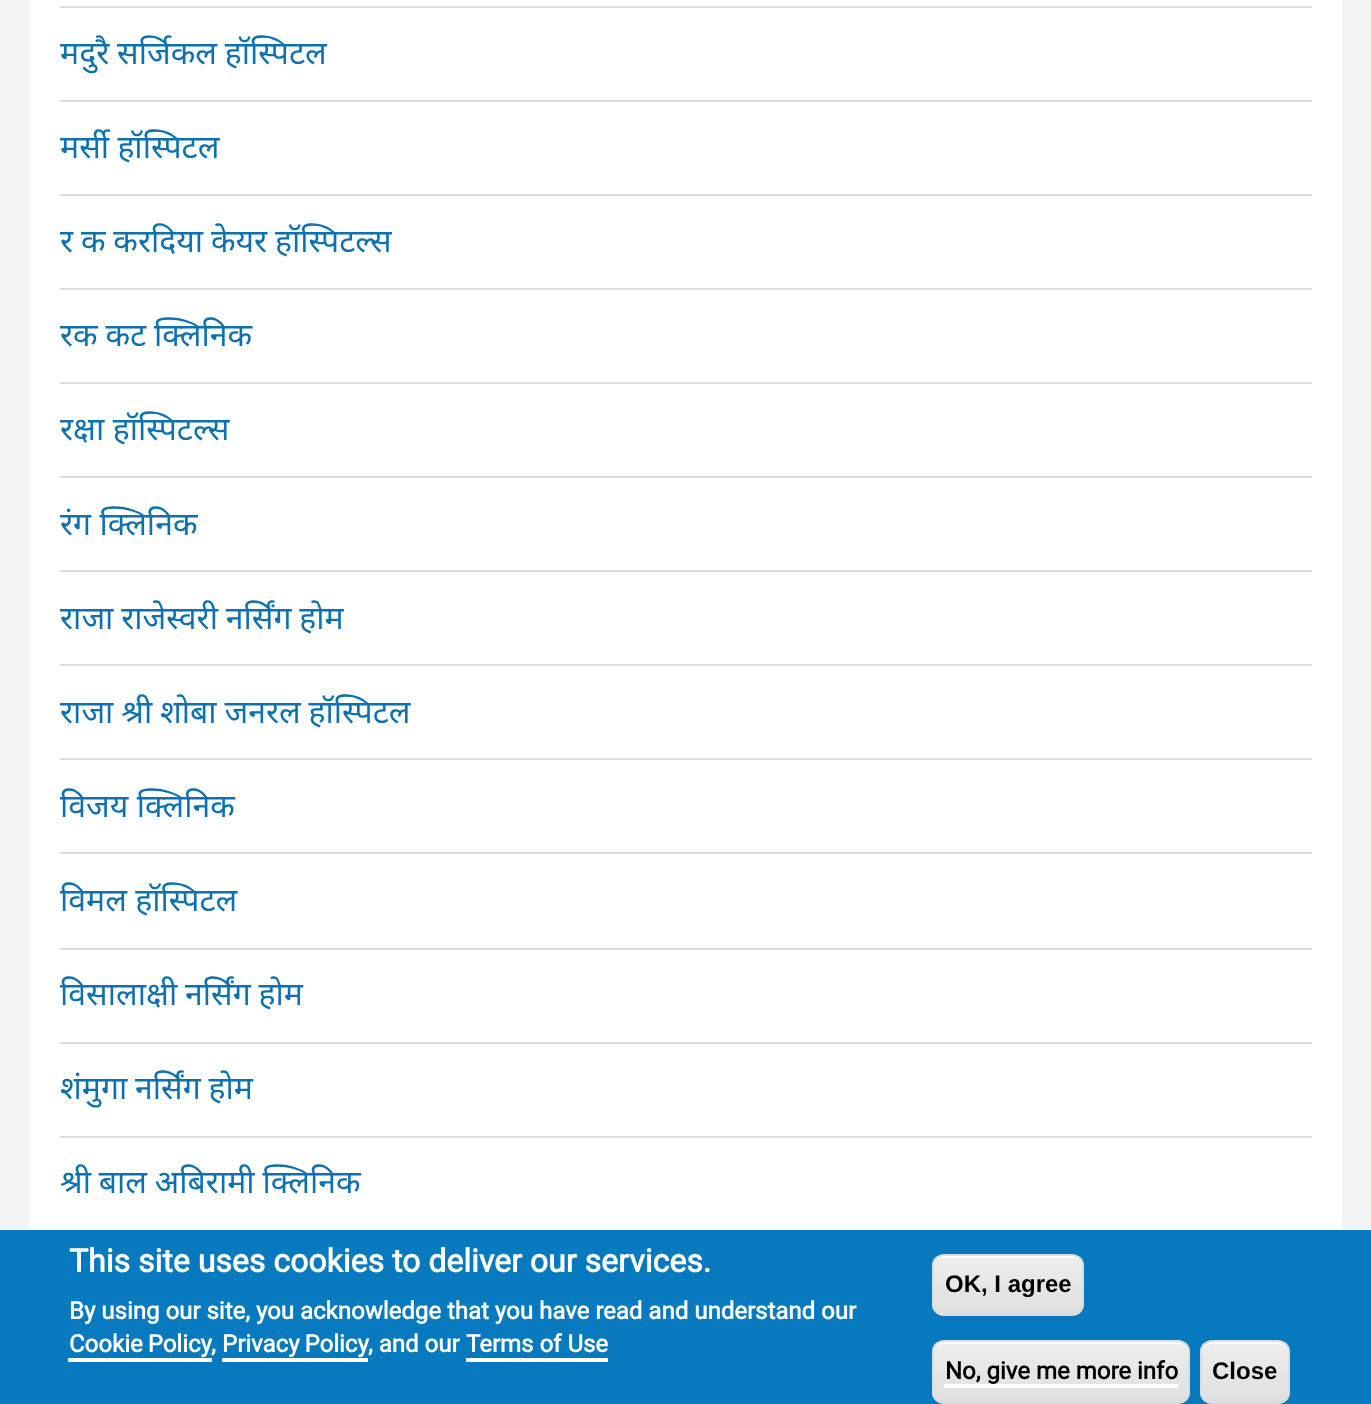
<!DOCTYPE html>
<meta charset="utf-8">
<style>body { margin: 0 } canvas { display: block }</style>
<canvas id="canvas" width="1371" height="1404"></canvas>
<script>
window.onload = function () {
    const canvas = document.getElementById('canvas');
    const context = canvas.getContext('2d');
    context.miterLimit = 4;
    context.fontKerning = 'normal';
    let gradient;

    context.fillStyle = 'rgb(244, 244, 244)';
    context.fillRect(0, 0, 1371, 1404);
    context.fillStyle = 'rgb(255, 255, 255)';
    context.fillRect(30, 0, 1312, 1230);
    context.fillStyle = 'rgb(221, 221, 221)';
    context.fillRect(60, 6, 1252, 2);
    context.fillRect(60, 100, 1252, 2);
    context.fillRect(60, 194, 1252, 2);
    context.fillRect(60, 288, 1252, 2);
    context.fillRect(60, 382, 1252, 2);
    context.fillRect(60, 476, 1252, 2);
    context.fillRect(60, 570, 1252, 2);
    context.fillRect(60, 664, 1252, 2);
    context.fillRect(60, 758, 1252, 2);
    context.fillRect(60, 852, 1252, 2);
    context.fillRect(60, 948, 1252, 2);
    context.fillRect(60, 1042, 1252, 2);
    context.fillRect(60, 1136, 1252, 2);
    context.fillStyle = 'rgb(7, 121, 191)';
    context.fillRect(0, 1230, 1371, 174);
    context.fillStyle = 'rgb(255, 255, 255)';
    context.fillRect(68, 1358, 144, 4);
    context.fillRect(222, 1358, 146, 4);
    context.fillRect(466, 1358, 142, 4);
    context.save();
    context.beginPath();
    context.roundRect(932, 1254, 152, 62, 12);
    context.clip();
    gradient = context.createLinearGradient(934, 1256, 934, 1314);
    gradient.addColorStop(0.05, 'rgb(237, 237, 237)');
    gradient.addColorStop(1, 'rgb(223, 223, 223)');
    context.fillStyle = gradient;
    context.fillRect(932, 1256, 152, 58);
    context.restore();
    context.beginPath();
    context.moveTo(944, 1258);
    context.lineTo(1072, 1258);
    context.bezierCurveTo(1078, 1258, 1082, 1262, 1082, 1268);
    context.bezierCurveTo(1082, 1251, 1063, 1256, 1051, 1256);
    context.lineTo(965, 1256);
    context.bezierCurveTo(953, 1256, 934, 1251, 934, 1268);
    context.bezierCurveTo(934, 1262, 938, 1258, 944, 1258);
    context.closePath();
    context.fill();
    context.beginPath();
    context.roundRect(933, 1255, 150, 60, 11);
    context.strokeStyle = 'rgb(220, 220, 220)';
    context.lineWidth = 2;
    context.stroke();
    context.save();
    context.beginPath();
    context.roundRect(932, 1340, 258, 64, 12);
    context.clip();
    gradient = context.createLinearGradient(934, 1342, 934, 1402);
    gradient.addColorStop(0.05, 'rgb(237, 237, 237)');
    gradient.addColorStop(1, 'rgb(223, 223, 223)');
    context.fillStyle = gradient;
    context.fillRect(932, 1342, 258, 60);
    context.restore();
    context.beginPath();
    context.moveTo(944, 1344);
    context.lineTo(1178, 1344);
    context.bezierCurveTo(1184, 1344, 1188, 1348, 1188, 1354);
    context.lineTo(1188, 1352);
    context.bezierCurveTo(1188, 1346, 1184, 1342, 1178, 1342);
    context.lineTo(944, 1342);
    context.bezierCurveTo(938, 1342, 934, 1346, 934, 1352);
    context.lineTo(934, 1354);
    context.bezierCurveTo(934, 1348, 938, 1344, 944, 1344);
    context.closePath();
    context.fill();
    context.beginPath();
    context.roundRect(933, 1341, 256, 62, 11);
    context.stroke();
    context.fillRect(944, 1384, 234, 4);
    context.save();
    context.beginPath();
    context.roundRect(1200, 1340, 90, 64, 12);
    context.clip();
    gradient = context.createLinearGradient(1202, 1342, 1202, 1402);
    gradient.addColorStop(0.05, 'rgb(237, 237, 237)');
    gradient.addColorStop(1, 'rgb(223, 223, 223)');
    context.fillStyle = gradient;
    context.fillRect(1200, 1342, 90, 60);
    context.restore();
    context.beginPath();
    context.moveTo(1212, 1344);
    context.lineTo(1278, 1344);
    context.bezierCurveTo(1284, 1344, 1288, 1348, 1288, 1354);
    context.bezierCurveTo(1288, 1340, 1278, 1342, 1267, 1342);
    context.lineTo(1223, 1342);
    context.bezierCurveTo(1212, 1342, 1202, 1340, 1202, 1354);
    context.bezierCurveTo(1202, 1348, 1206, 1344, 1212, 1344);
    context.closePath();
    context.fill();
    context.beginPath();
    context.roundRect(1201, 1341, 88, 62, 11);
    context.stroke();
    context.wordSpacing = '-0.5px';
    context.font = '32px Noto Sans';
    context.fillStyle = 'rgb(13, 113, 175)';
    context.fillText('मदुरै सर्जिकल हॉस्पिटल', 60, 64);
    context.wordSpacing = '0px';
    context.fillText('मर्सी हॉस्पिटल', 60, 158);
    context.wordSpacing = '-0.5px';
    context.fillText('र क करदिया केयर हॉस्पिटल्स', 60, 252);
    context.fillText('रक कट क्लिनिक', 60, 346);
    context.wordSpacing = '0px';
    context.fillText('रक्षा हॉस्पिटल्स', 60, 440);
    context.fillText('रंग क्लिनिक', 60, 535);
    context.wordSpacing = '-0.5px';
    context.fillText('राजा राजेस्वरी नर्सिंग होम', 60, 629);
    context.fillText('राजा श्री शोबा जनरल हॉस्पिटल', 60, 723);
    context.wordSpacing = '0px';
    context.fillText('विजय क्लिनिक', 60, 817);
    context.fillText('विमल हॉस्पिटल', 60, 911);
    context.wordSpacing = '-0.5px';
    context.fillText('विसालाक्षी नर्सिंग होम', 60, 1005);
    context.fillText('शंमुगा नर्सिंग होम', 60, 1099);
    context.fillText('श्री बाल अबिरामी क्लिनिक', 60, 1193);
    context.wordSpacing = '0px';
    context.font = 'bold 32px Roboto';
    context.fillStyle = 'rgb(255, 255, 255)';
    context.fillText('This site uses cookies to deliver our services.', 69, 1272);
    context.font = 'bold 24px Roboto';
    context.fillText('By using our site, you acknowledge that you have read and understand our', 69, 1319);
    context.wordSpacing = '-1px';
    context.fillText('Cookie Policy', 69, 1352);
    context.wordSpacing = '0px';
    context.fillText(',', 211, 1352);
    context.wordSpacing = '-1px';
    context.fillText('Privacy Policy', 222, 1352);
    context.wordSpacing = '0px';
    context.fillText(', and our', 368, 1352);
    context.fillText('Terms of Use', 466, 1352);
    context.font = 'bold 24px Liberation Sans';
    context.fillStyle = 'rgb(0, 0, 0)';
    context.fillText('OK, I agree', 945, 1292);
    context.font = 'bold 24px Roboto';
    context.fillText('No, give me more info', 945, 1379);
    context.font = 'bold 24px Liberation Sans';
    context.fillText('Close', 1212, 1379);
};
</script>
